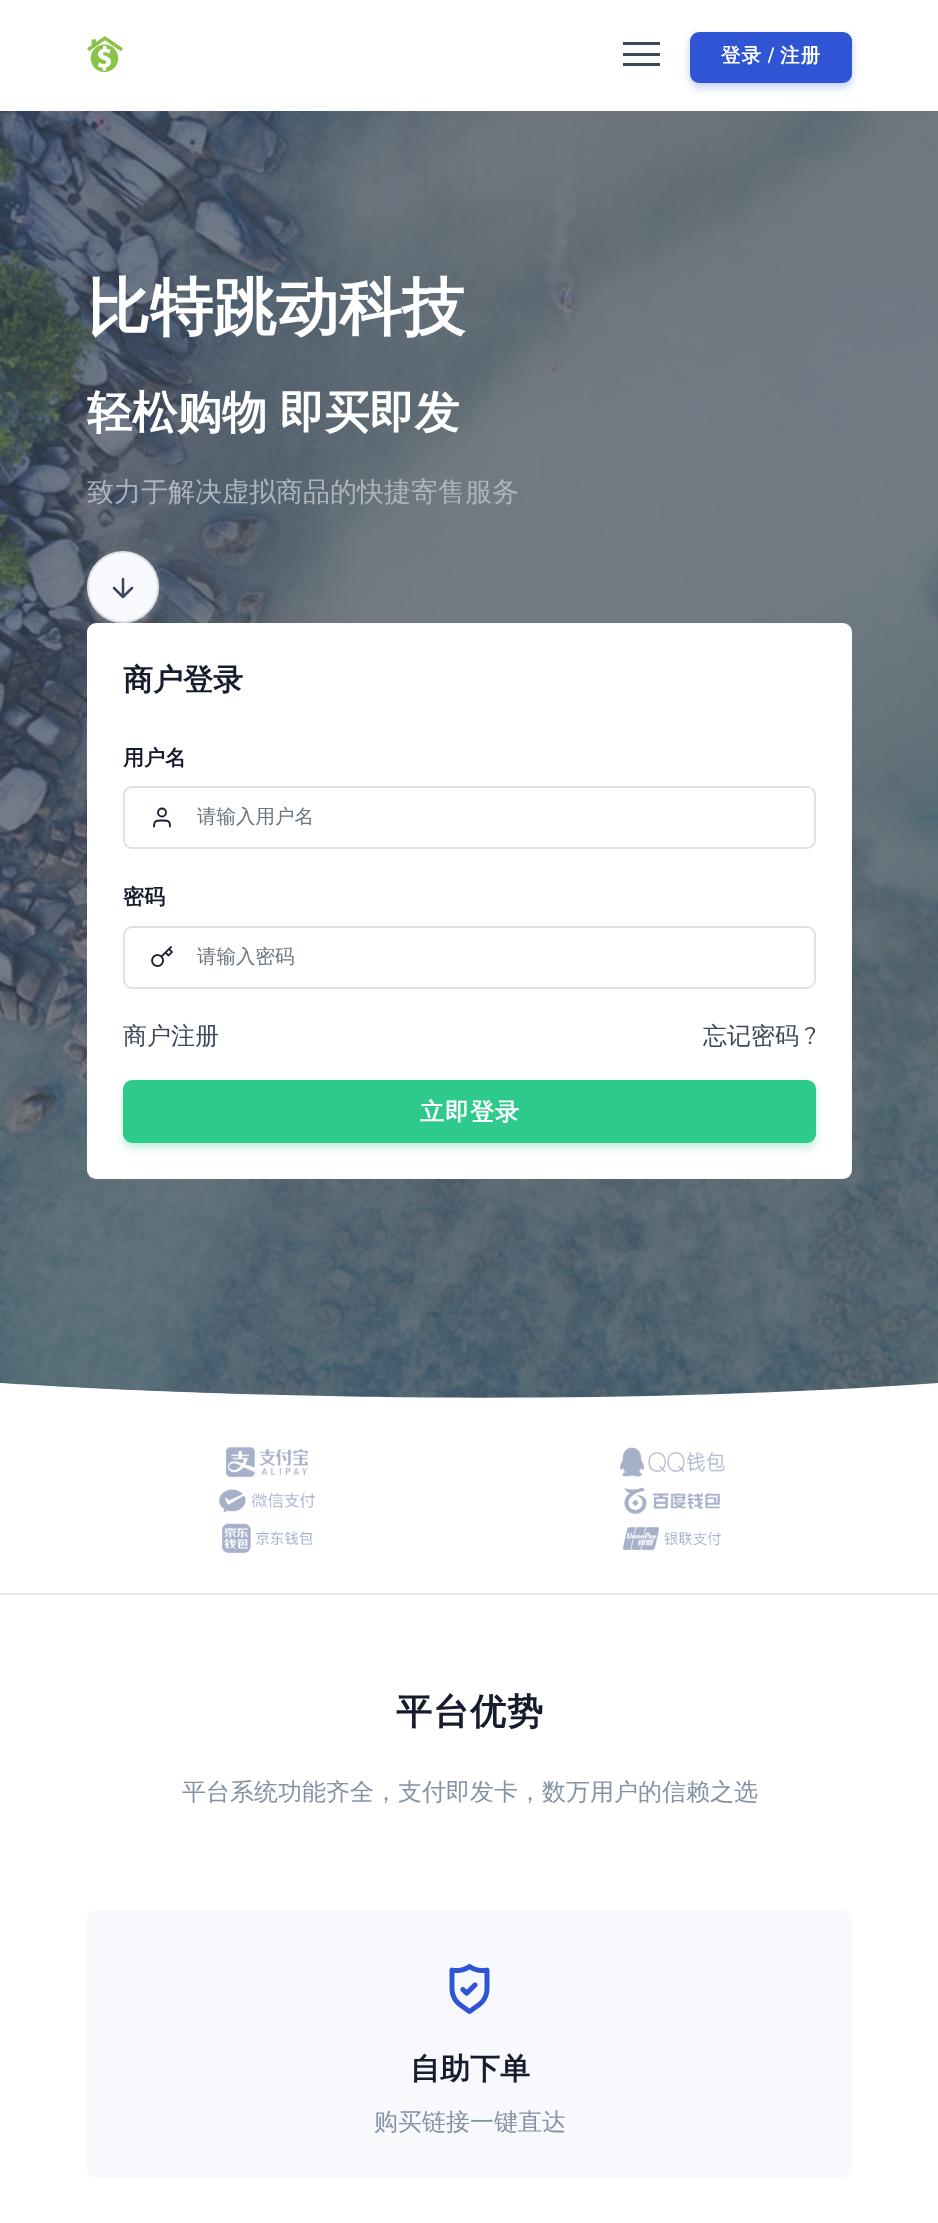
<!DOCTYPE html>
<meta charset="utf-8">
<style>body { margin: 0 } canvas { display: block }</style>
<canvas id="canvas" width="938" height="2223"></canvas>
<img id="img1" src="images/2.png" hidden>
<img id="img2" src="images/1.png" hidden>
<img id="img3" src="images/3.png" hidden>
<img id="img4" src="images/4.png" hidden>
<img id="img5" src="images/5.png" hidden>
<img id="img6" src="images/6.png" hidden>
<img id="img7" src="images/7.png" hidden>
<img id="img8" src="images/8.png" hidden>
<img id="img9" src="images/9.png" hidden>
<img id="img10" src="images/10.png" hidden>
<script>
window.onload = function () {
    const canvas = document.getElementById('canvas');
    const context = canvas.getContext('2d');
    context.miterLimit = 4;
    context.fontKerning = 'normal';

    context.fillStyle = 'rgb(255, 255, 255)';
    context.fillRect(0, 0, 938, 2223);
    context.drawImage(document.getElementById('img1'), 0, 111, 938, 1287);
    context.fillStyle = 'rgba(60, 72, 88, 0.15)';
    context.filter = 'blur(2px)';
    context.beginPath();
    context.rect(0, 0, 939, 111);
    context.fill();
    context.filter = 'none';
    context.fillStyle = 'rgb(255, 255, 255)';
    context.fillRect(0, 0, 938, 111);
    context.drawImage(document.getElementById('img2'), 87, 36, 36, 36);
    context.fillStyle = 'rgb(60, 72, 88)';
    context.fillRect(623, 42, 37, 3);
    context.fillRect(623, 53, 37, 3);
    context.fillRect(623, 63, 37, 3);
    context.fillStyle = 'rgba(47, 85, 212, 0.3)';
    context.filter = 'blur(4px)';
    context.beginPath();
    context.roundRect(690, 36, 162, 51, 9);
    context.fill();
    context.filter = 'none';
    context.fillStyle = 'rgb(47, 85, 212)';
    context.beginPath();
    context.roundRect(691, 33, 160, 49, 8);
    context.fill();
    context.strokeStyle = 'rgb(47, 85, 212)';
    context.lineWidth = 2;
    context.stroke();
    context.fillStyle = 'rgba(248, 249, 252, 0.3)';
    context.filter = 'blur(4px)';
    context.beginPath();
    context.roundRect(87, 555, 72, 72, 36);
    context.fill();
    context.filter = 'none';
    context.fillStyle = 'rgb(248, 249, 252)';
    context.beginPath();
    context.arc(123, 587, 35, 0, 2 * Math.PI);
    context.fill();
    context.strokeStyle = 'rgb(222, 226, 230)';
    context.stroke();
    context.beginPath();
    context.moveTo(123, 579);
    context.lineTo(123, 597);
    context.moveTo(132, 588);
    context.lineTo(123, 597);
    context.lineTo(114, 588);
    context.strokeStyle = 'rgb(60, 72, 88)';
    context.lineWidth = 2.5;
    context.lineCap = 'round';
    context.lineJoin = 'round';
    context.stroke();
    context.fillStyle = 'rgb(255, 255, 255)';
    context.beginPath();
    context.roundRect(87, 623, 765, 556, 9);
    context.fill();
    context.beginPath();
    context.roundRect(124, 787, 691, 61, 8);
    context.strokeStyle = 'rgb(222, 226, 230)';
    context.lineWidth = 2;
    context.lineJoin = 'miter';
    context.stroke();
    context.beginPath();
    context.moveTo(170, 826.5);
    context.bezierCurveTo(170, 820, 167.5, 820.5, 162, 820.5);
    context.bezierCurveTo(156.5, 820.5, 154, 820, 154, 826.5);
    context.strokeStyle = 'rgb(22, 28, 45)';
    context.lineWidth = 1.8;
    context.lineJoin = 'round';
    context.stroke();
    context.beginPath();
    context.arc(162, 812.5, 4, 0, 2 * Math.PI);
    context.stroke();
    context.beginPath();
    context.roundRect(124, 927, 691, 61, 8);
    context.strokeStyle = 'rgb(222, 226, 230)';
    context.lineWidth = 2;
    context.lineJoin = 'miter';
    context.stroke();
    context.drawImage(document.getElementById('img3'), 151, 946, 22, 21);
    context.fillStyle = 'rgba(46, 202, 139, 0.3)';
    context.filter = 'blur(4px)';
    context.beginPath();
    context.roundRect(123, 1085, 693, 63, 9);
    context.fill();
    context.filter = 'none';
    context.fillStyle = 'rgb(46, 202, 139)';
    context.beginPath();
    context.roundRect(124, 1081, 691, 61, 8);
    context.fill();
    context.strokeStyle = 'rgb(46, 202, 139)';
    context.stroke();
    context.save();
    context.beginPath();
    context.rect(0, 1383, 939, 24);
    context.clip();
    context.fillStyle = 'rgb(255, 255, 255)';
    context.beginPath();
    context.moveTo(-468, 1414);
    context.lineTo(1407, 1414);
    context.lineTo(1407, 1383);
    context.lineTo(938, 1383);
    context.bezierCurveTo(471, 1416, 1, 1383, 1, 1383);
    context.lineTo(-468, 1383);
    context.closePath();
    context.fill();
    context.restore();
    context.fillStyle = 'rgb(233, 236, 239)';
    context.fillRect(0, 1593, 938, 2);
    context.drawImage(document.getElementById('img4'), 226, 1447, 82, 30);
    context.drawImage(document.getElementById('img5'), 620, 1447, 105, 30);
    context.drawImage(document.getElementById('img6'), 219, 1489, 96, 24);
    context.drawImage(document.getElementById('img7'), 624, 1487, 96, 27);
    context.drawImage(document.getElementById('img8'), 222, 1523, 91, 30);
    context.drawImage(document.getElementById('img9'), 622, 1527, 100, 24);
    context.fillStyle = 'rgb(248, 249, 252)';
    context.beginPath();
    context.roundRect(87, 1910, 765, 268, 9);
    context.fill();
    context.drawImage(document.getElementById('img10'), 449, 1964, 41, 50);
    context.letterSpacing = '1px';
    context.font = 'bold 19.5px WenQuanYi Zen Hei';
    context.fillStyle = 'rgb(255, 255, 255)';
    context.fillText('登录', 721, 62);
    context.font = '600 19.5px Nunito';
    context.fillText('/', 768, 62);
    context.font = 'bold 19.5px WenQuanYi Zen Hei';
    context.fillText('注册', 780, 62);
    context.letterSpacing = '0px';
    context.font = 'bold 63px WenQuanYi Zen Hei';
    context.fillText('比特跳动科技', 87, 329);
    context.wordSpacing = '-1px';
    context.font = 'bold 45px WenQuanYi Zen Hei';
    context.fillText('轻松购物 即买即发', 87, 428);
    context.wordSpacing = '0px';
    context.font = '500 27px WenQuanYi Zen Hei';
    context.fillStyle = 'rgb(175, 181, 186)';
    context.fillText('致力于解决虚拟商品的快捷寄售服务', 87, 501);
    context.font = 'bold 30px WenQuanYi Zen Hei';
    context.fillStyle = 'rgb(22, 28, 45)';
    context.fillText('商户登录', 123, 690);
    context.font = 'bold 21px WenQuanYi Zen Hei';
    context.fillText('用户名', 123, 765);
    context.font = '500 19.5px WenQuanYi Zen Hei';
    context.fillStyle = 'rgb(108, 117, 125)';
    context.fillText('请输入用户名', 197, 823);
    context.font = 'bold 21px WenQuanYi Zen Hei';
    context.fillStyle = 'rgb(22, 28, 45)';
    context.fillText('密码', 123, 904);
    context.font = '500 19.5px WenQuanYi Zen Hei';
    context.fillStyle = 'rgb(108, 117, 125)';
    context.fillText('请输入密码', 197, 963);
    context.font = '500 24px WenQuanYi Zen Hei';
    context.fillStyle = 'rgb(60, 72, 88)';
    context.fillText('商户注册', 123, 1044);
    context.fillText('忘记密码', 703, 1044);
    context.font = '24px Nunito';
    context.fillText('?', 805, 1044);
    context.letterSpacing = '1px';
    context.font = 'bold 24px WenQuanYi Zen Hei';
    context.fillStyle = 'rgb(255, 255, 255)';
    context.fillText('立即登录', 420, 1120);
    context.font = 'bold 36px WenQuanYi Zen Hei';
    context.fillStyle = 'rgb(22, 28, 45)';
    context.fillText('平台优势', 396, 1724);
    context.letterSpacing = '0px';
    context.font = '500 24px WenQuanYi Zen Hei';
    context.fillStyle = 'rgb(132, 146, 166)';
    context.fillText('平台系统功能齐全，支付即发卡，数万用户的信赖之选', 182, 1800);
    context.font = 'bold 30px WenQuanYi Zen Hei';
    context.fillStyle = 'rgb(22, 28, 45)';
    context.fillText('自助下单', 410, 2079);
    context.font = '500 24px WenQuanYi Zen Hei';
    context.fillStyle = 'rgb(132, 146, 166)';
    context.fillText('购买链接一键直达', 374, 2130);
};
</script>
